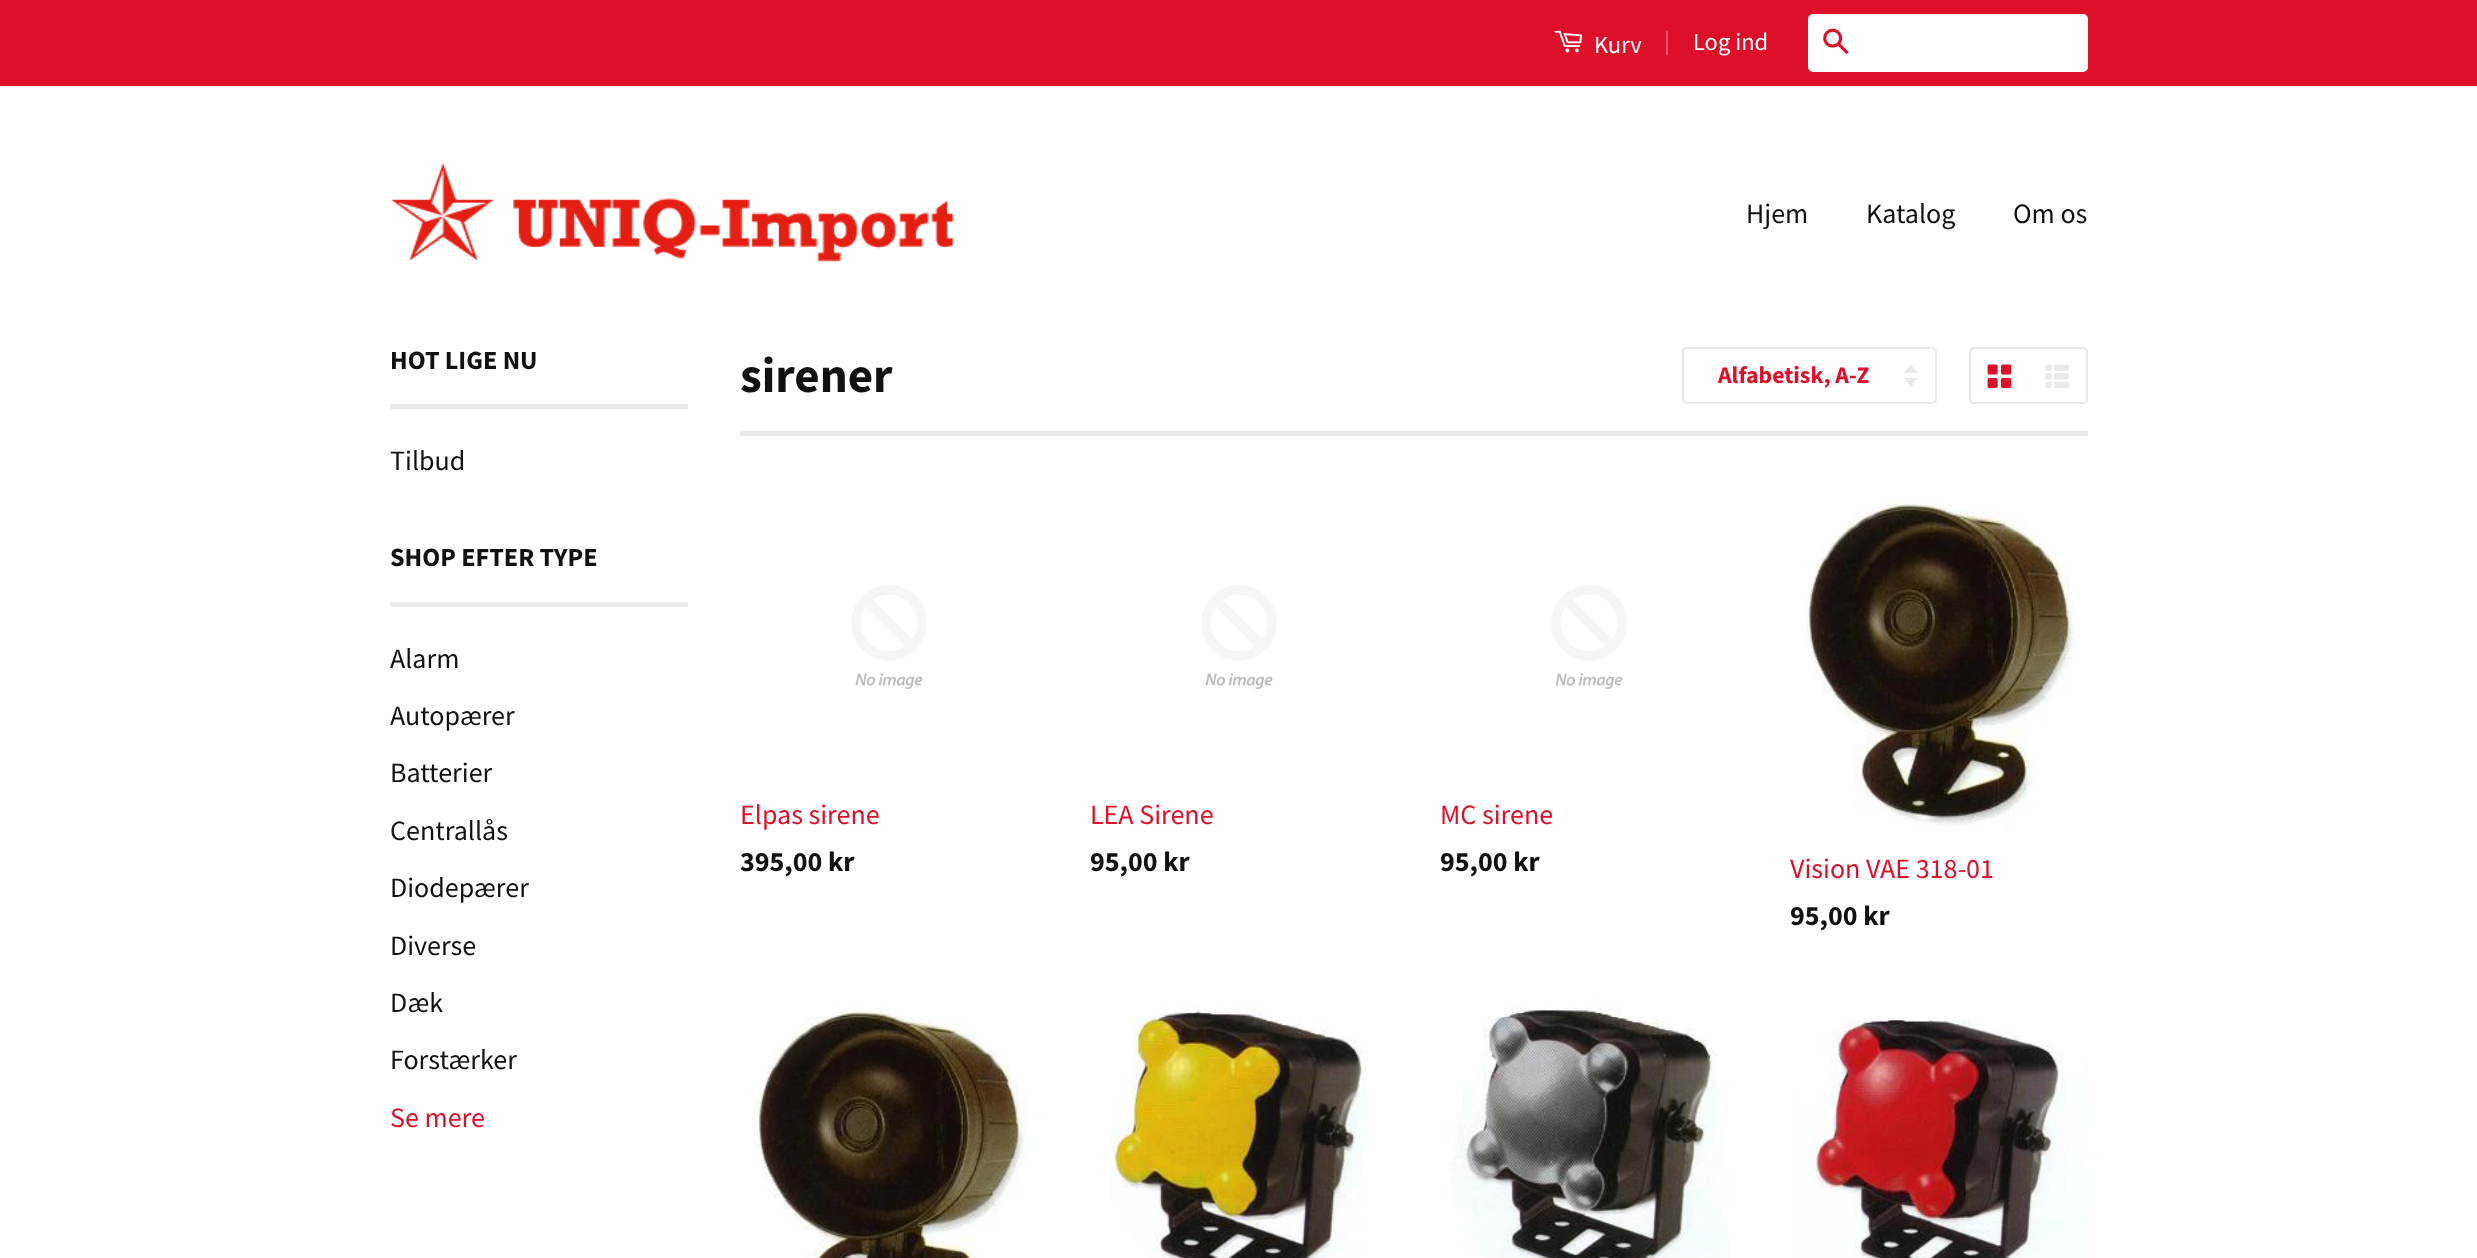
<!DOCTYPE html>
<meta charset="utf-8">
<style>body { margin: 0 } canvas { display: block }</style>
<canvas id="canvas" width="2477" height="1258"></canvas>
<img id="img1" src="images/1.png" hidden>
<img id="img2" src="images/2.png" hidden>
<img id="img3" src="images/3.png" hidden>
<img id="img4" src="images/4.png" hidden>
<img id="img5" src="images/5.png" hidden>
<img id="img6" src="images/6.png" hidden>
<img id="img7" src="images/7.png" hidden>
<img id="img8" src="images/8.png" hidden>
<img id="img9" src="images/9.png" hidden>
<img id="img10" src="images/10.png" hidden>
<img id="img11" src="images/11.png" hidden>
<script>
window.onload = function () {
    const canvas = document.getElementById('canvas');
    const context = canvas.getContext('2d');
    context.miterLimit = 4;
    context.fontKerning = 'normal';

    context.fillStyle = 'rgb(255, 255, 255)';
    context.fillRect(0, 0, 2477, 1258);
    context.fillStyle = 'rgb(222, 16, 41)';
    context.fillRect(0, 0, 2477, 86);
    context.drawImage(document.getElementById('img1'), 1554, 30, 29, 23);
    context.fillStyle = 'rgb(255, 255, 255)';
    context.beginPath();
    context.roundRect(1808, 14, 280, 58, 5);
    context.fill();
    context.drawImage(document.getElementById('img2'), 1823, 28, 26, 26);
    context.drawImage(document.getElementById('img3'), 391, 162, 562, 100);
    context.fillStyle = 'rgb(234, 234, 234)';
    context.fillRect(390, 404, 298, 5);
    context.fillRect(390, 602, 298, 5);
    context.fillRect(740, 431, 1348, 5);
    context.beginPath();
    context.moveTo(1904, 378);
    context.lineTo(1911, 387);
    context.lineTo(1918, 378);
    context.closePath();
    context.moveTo(1911, 364);
    context.lineTo(1904, 373);
    context.lineTo(1918, 373);
    context.closePath();
    context.fill();
    context.beginPath();
    context.roundRect(1683, 348, 253, 55, 4);
    context.strokeStyle = 'rgb(234, 234, 234)';
    context.lineWidth = 2;
    context.stroke();
    context.beginPath();
    context.roundRect(1970, 348, 117, 55, 4);
    context.stroke();
    context.drawImage(document.getElementById('img4'), 1987, 364, 25, 24);
    context.drawImage(document.getElementById('img5'), 2045, 364, 24, 24);
    context.drawImage(document.getElementById('img6'), 851, 585, 76, 104);
    context.drawImage(document.getElementById('img6'), 1201, 585, 76, 104);
    context.drawImage(document.getElementById('img6'), 1551, 585, 76, 104);
    context.drawImage(document.getElementById('img7'), 1802, 499, 277, 333);
    context.drawImage(document.getElementById('img8'), 752, 1007, 277, 251);
    context.drawImage(document.getElementById('img9'), 1110, 1006, 258, 252);
    context.drawImage(document.getElementById('img10'), 1441, 996, 289, 262);
    context.drawImage(document.getElementById('img11'), 1791, 1018, 297, 240);
    context.font = '24.5px Source Sans Pro';
    context.fillStyle = 'rgb(255, 255, 255)';
    context.fillText('Kurv', 1594, 53);
    context.fillStyle = 'rgb(235, 112, 127)';
    context.fillText('|', 1664, 49);
    context.fillStyle = 'rgb(255, 255, 255)';
    context.fillText('Log ind', 1693, 50);
    context.font = '28px Source Sans Pro';
    context.fillStyle = 'rgb(17, 17, 17)';
    context.fillText('Hjem', 1746, 223);
    context.fillText('Katalog', 1866, 223);
    context.fillText('Om os', 2013, 223);
    context.font = 'bold 26.25px Source Sans Pro';
    context.fillText('HOT LIGE NU', 390, 369);
    context.font = '28px Source Sans Pro';
    context.fillText('Tilbud', 390, 470);
    context.font = 'bold 26.25px Source Sans Pro';
    context.fillText('SHOP EFTER TYPE', 390, 566);
    context.font = '28px Source Sans Pro';
    context.fillText('Alarm', 390, 668);
    context.fillText('Autopærer', 390, 725);
    context.fillText('Batterier', 390, 782);
    context.fillText('Centrallås', 390, 840);
    context.fillText('Diodepærer', 390, 897);
    context.fillText('Diverse', 390, 955);
    context.fillText('Dæk', 390, 1012);
    context.fillText('Forstærker', 390, 1069);
    context.fillStyle = 'rgb(222, 16, 41)';
    context.fillText('Se mere', 390, 1127);
    context.font = 'bold 49px Source Sans Pro';
    context.fillStyle = 'rgb(17, 17, 17)';
    context.fillText('sirener', 740, 392);
    context.font = 'bold 23.75px Source Sans Pro';
    context.fillStyle = 'rgb(222, 16, 41)';
    context.fillText('Alfabetisk, A-Z', 1718, 383);
    context.font = '28px Source Sans Pro';
    context.fillText('Elpas sirene', 740, 824);
    context.font = 'bold 28px Source Sans Pro';
    context.fillStyle = 'rgb(17, 17, 17)';
    context.fillText('395,00 kr', 740, 871);
    context.font = '28px Source Sans Pro';
    context.fillStyle = 'rgb(222, 16, 41)';
    context.fillText('LEA Sirene', 1090, 824);
    context.font = 'bold 28px Source Sans Pro';
    context.fillStyle = 'rgb(17, 17, 17)';
    context.fillText('95,00 kr', 1090, 871);
    context.font = '28px Source Sans Pro';
    context.fillStyle = 'rgb(222, 16, 41)';
    context.fillText('MC sirene', 1440, 824);
    context.font = 'bold 28px Source Sans Pro';
    context.fillStyle = 'rgb(17, 17, 17)';
    context.fillText('95,00 kr', 1440, 871);
    context.font = '28px Source Sans Pro';
    context.fillStyle = 'rgb(222, 16, 41)';
    context.fillText('Vision VAE 318-01', 1790, 878);
    context.font = 'bold 28px Source Sans Pro';
    context.fillStyle = 'rgb(17, 17, 17)';
    context.fillText('95,00 kr', 1790, 925);
};
</script>
